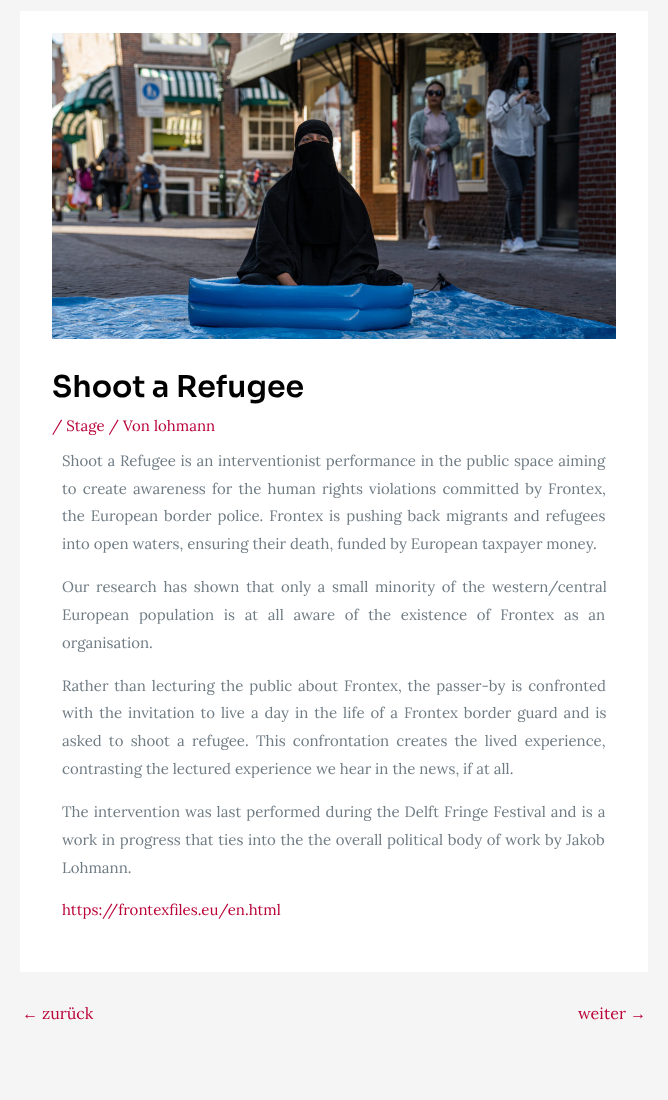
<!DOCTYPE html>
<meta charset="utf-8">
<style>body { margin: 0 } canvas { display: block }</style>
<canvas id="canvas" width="668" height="1100"></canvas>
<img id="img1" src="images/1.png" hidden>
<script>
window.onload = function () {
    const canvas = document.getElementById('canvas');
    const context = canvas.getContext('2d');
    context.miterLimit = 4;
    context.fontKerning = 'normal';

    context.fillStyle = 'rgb(245, 245, 245)';
    context.fillRect(0, 0, 668, 1100);
    context.fillStyle = 'rgb(255, 255, 255)';
    context.fillRect(20, 11, 628, 961);
    context.drawImage(document.getElementById('img1'), 52, 33, 564, 306);
    context.font = '600 30px Sora';
    context.fillStyle = 'rgb(0, 0, 0)';
    context.fillText('Shoot a Refugee', 52, 397);
    context.font = '15px Lora';
    context.fillStyle = 'rgb(185, 0, 55)';
    context.fillText('/ Stage / Von lohmann', 52, 431);
    context.wordSpacing = '0.75px';
    context.fillStyle = 'rgb(112, 124, 132)';
    context.fillText('Shoot a Refugee is an interventionist performance in the public space aiming', 62, 466);
    context.wordSpacing = '2.25px';
    context.fillText('to create awareness for the human rights violations committed by Frontex,', 62, 494);
    context.wordSpacing = '2px';
    context.fillText('the European border police. Frontex is pushing back migrants and refugees', 62, 521);
    context.wordSpacing = '0px';
    context.fillText('into open waters, ensuring their death, funded by European taxpayer money.', 62, 549);
    context.wordSpacing = '2.75px';
    context.fillText('Our research has shown that only a small minority of the western/central', 62, 592);
    context.wordSpacing = '5.75px';
    context.fillText('European population is at all aware of the existence of Frontex as an', 62, 620);
    context.wordSpacing = '0px';
    context.fillText('organisation.', 62, 648);
    context.wordSpacing = '1.9px';
    context.fillText('Rather than lecturing the public about Frontex, the passer-by is confronted', 62, 691);
    context.wordSpacing = '2px';
    context.fillText('with the invitation to live a day in the life of a Frontex border guard and is', 62, 718);
    context.wordSpacing = '3.25px';
    context.fillText('asked to shoot a refugee. This confrontation creates the lived experience,', 62, 746);
    context.wordSpacing = '0px';
    context.fillText('contrasting the lectured experience we hear in the news, if at all.', 62, 774);
    context.wordSpacing = '1.1px';
    context.fillText('The intervention was last performed during the Delft Fringe Festival and is a', 62, 817);
    context.wordSpacing = '0.75px';
    context.fillText('work in progress that ties into the the overall political body of work by Jakob', 62, 845);
    context.wordSpacing = '0px';
    context.fillText('Lohmann.', 62, 873);
    context.fillStyle = 'rgb(185, 0, 55)';
    context.fillText('https://frontexfiles.eu/en.html', 62, 915);
    context.font = '16px Liberation Serif';
    context.fillText('←', 22, 1019);
    context.font = '16px Lora';
    context.fillText('zurück', 42, 1019);
    context.fillText('weiter', 578, 1019);
    context.font = '16px Liberation Serif';
    context.fillText('→', 630, 1019);
};
</script>
